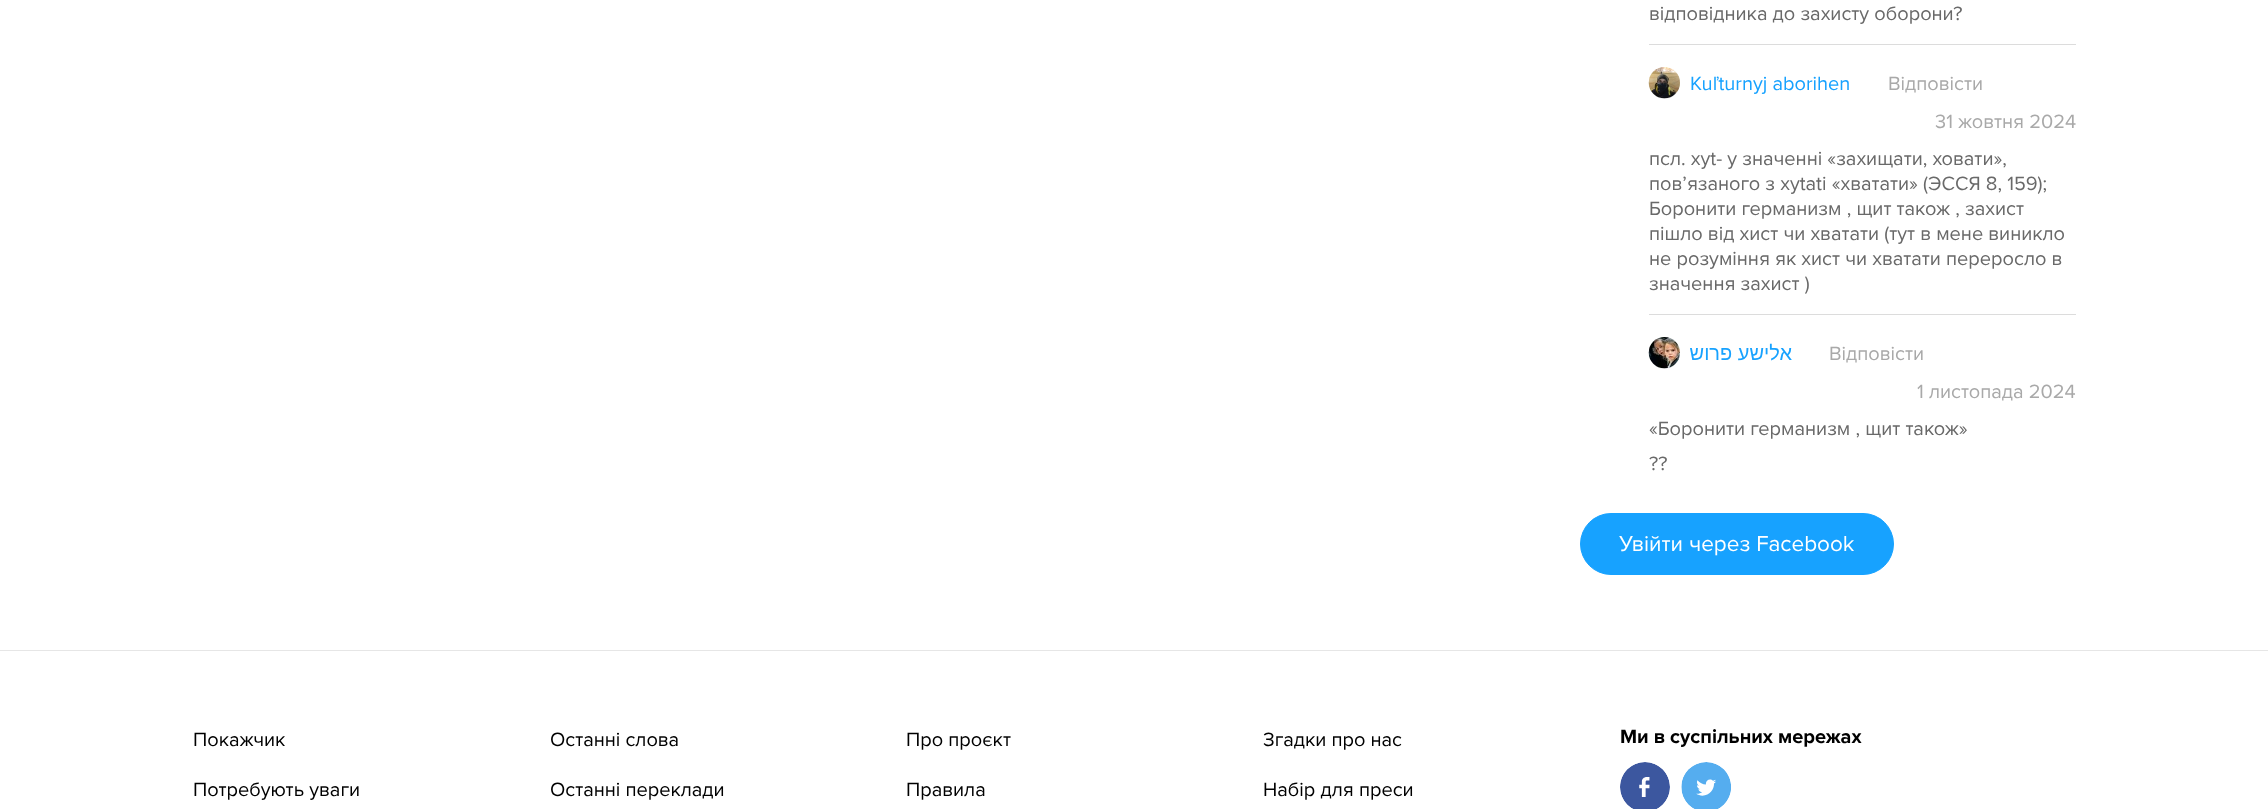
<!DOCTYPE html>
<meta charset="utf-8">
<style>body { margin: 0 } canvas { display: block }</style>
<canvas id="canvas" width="2268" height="809"></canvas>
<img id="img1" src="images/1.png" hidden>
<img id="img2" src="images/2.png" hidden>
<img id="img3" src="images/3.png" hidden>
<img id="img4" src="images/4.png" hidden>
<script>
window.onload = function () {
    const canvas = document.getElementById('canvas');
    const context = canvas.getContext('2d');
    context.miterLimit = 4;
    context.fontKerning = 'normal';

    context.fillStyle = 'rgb(255, 255, 255)';
    context.fillRect(0, 0, 2268, 809);
    context.fillStyle = 'rgb(220, 220, 220)';
    context.fillRect(1649, 44, 427, 1);
    context.fillStyle = 'rgb(245, 245, 245)';
    context.beginPath();
    context.arc(1664.5, 83.5, 15.5, 0, 2 * Math.PI);
    context.fill();
    context.drawImage(document.getElementById('img1'), 1648, 67, 32, 32);
    context.fillStyle = 'rgb(220, 220, 220)';
    context.fillRect(1649, 314, 427, 1);
    context.fillStyle = 'rgb(245, 245, 245)';
    context.beginPath();
    context.arc(1664.5, 353.5, 15.5, 0, 2 * Math.PI);
    context.fill();
    context.drawImage(document.getElementById('img2'), 1648, 337, 32, 32);
    context.fillStyle = 'rgb(23, 162, 255)';
    context.beginPath();
    context.roundRect(1580.5, 513.5, 313, 61, 30.5);
    context.fill();
    context.strokeStyle = 'rgb(23, 162, 255)';
    context.stroke();
    context.fillStyle = 'rgb(230, 230, 230)';
    context.fillRect(0, 650, 2268, 1);
    context.drawImage(document.getElementById('img3'), 1620, 762, 50, 47);
    context.drawImage(document.getElementById('img4'), 1681, 762, 50, 47);
    context.font = '20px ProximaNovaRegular';
    context.fillStyle = 'rgb(105, 105, 105)';
    context.fillText('відповідника до захисту оборони?', 1649, 20);
    context.fillStyle = 'rgb(23, 162, 255)';
    context.fillText('Kuľturnyj aborihen', 1690, 90);
    context.fillStyle = 'rgb(169, 169, 169)';
    context.fillText('Відповісти', 1888, 90);
    context.fillText('31 жовтня 2024', 1935, 128);
    context.fillStyle = 'rgb(105, 105, 105)';
    context.fillText('псл. xyt- у значенні «захищати, ховати»,', 1649, 165);
    context.fillText('пов’язаного з xytati «хватати» (ЭССЯ 8, 159);', 1649, 190);
    context.fillText('Боронити германизм , щит також , захист', 1649, 215);
    context.fillText('пішло від хист чи хватати (тут в мене виникло', 1649, 240);
    context.fillText('не розуміння як хист чи хватати переросло в', 1649, 265);
    context.fillText('значення захист )', 1649, 290);
    context.direction = 'rtl';
    context.font = '20px Liberation Sans';
    context.fillStyle = 'rgb(23, 162, 255)';
    context.fillText('אלישע פרוש', 1792, 360);
    context.direction = 'ltr';
    context.font = '20px ProximaNovaRegular';
    context.fillStyle = 'rgb(169, 169, 169)';
    context.fillText('Відповісти', 1829, 360);
    context.fillText('1 листопада 2024', 1917, 398);
    context.fillStyle = 'rgb(105, 105, 105)';
    context.fillText('«Боронити германизм , щит також»', 1649, 435);
    context.fillText('??', 1649, 470);
    context.font = '22.5px ProximaNovaRegular';
    context.fillStyle = 'rgb(255, 255, 255)';
    context.fillText('Увійти', 1619, 551);
    context.fillText('через Facebook', 1689, 551);
    context.font = '20px ProximaNovaRegular';
    context.fillStyle = 'rgb(0, 0, 0)';
    context.fillText('Покажчик', 193, 746);
    context.fillText('Потребують уваги', 193, 796);
    context.fillText('Останні слова', 550, 746);
    context.fillText('Останні переклади', 550, 796);
    context.fillText('Про проєкт', 906, 746);
    context.fillText('Правила', 906, 796);
    context.fillText('Згадки про нас', 1263, 746);
    context.fillText('Набір для преси', 1263, 796);
    context.font = 'bold 20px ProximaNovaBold';
    context.fillText('Ми в суспільних мережах', 1620, 743);
};
</script>
